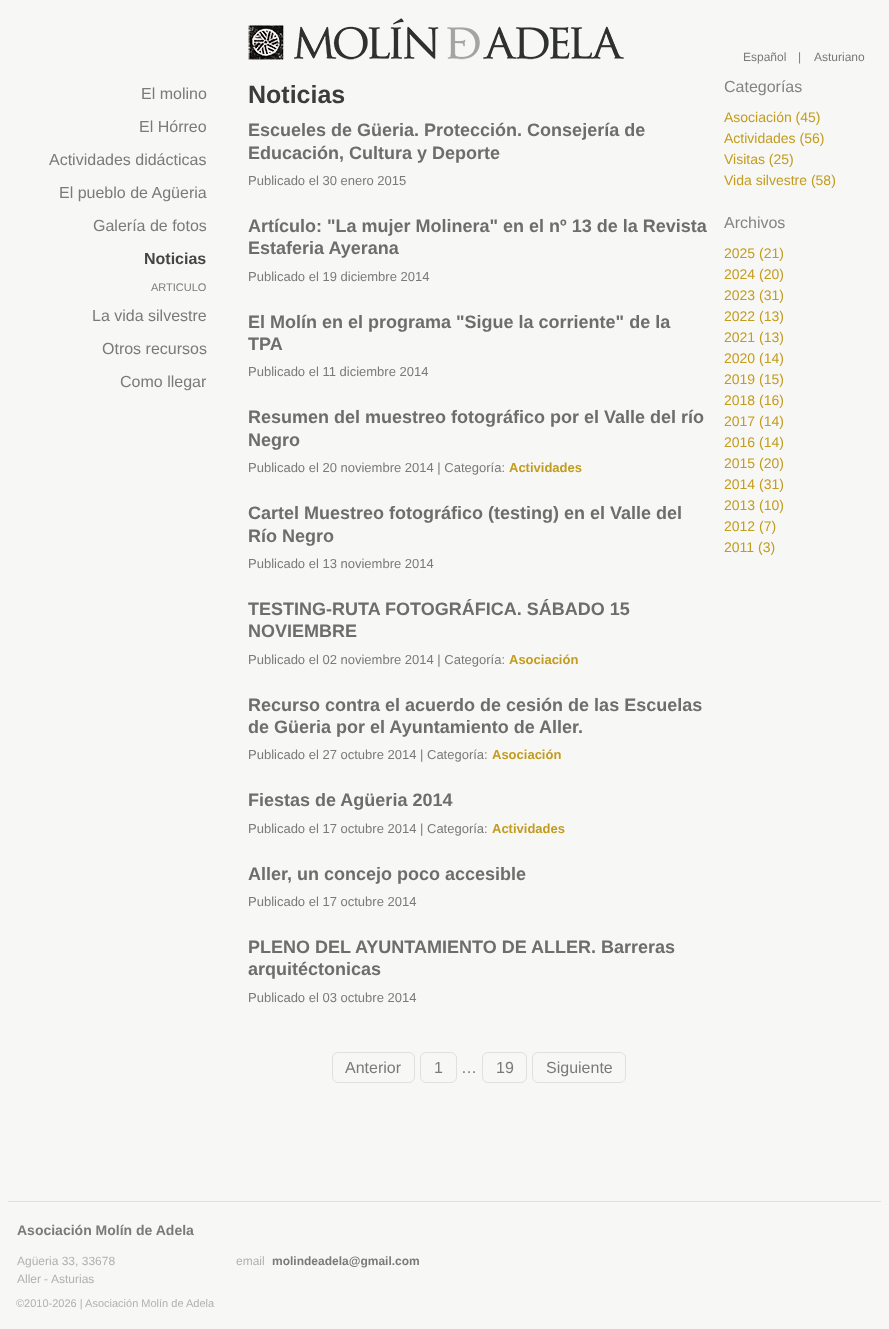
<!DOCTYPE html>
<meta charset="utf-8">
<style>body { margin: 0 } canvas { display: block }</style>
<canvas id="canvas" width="889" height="1329"></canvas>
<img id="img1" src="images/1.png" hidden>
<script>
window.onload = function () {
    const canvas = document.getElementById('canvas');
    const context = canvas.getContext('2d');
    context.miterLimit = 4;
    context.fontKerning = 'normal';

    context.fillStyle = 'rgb(247, 247, 245)';
    context.fillRect(0, 0, 889, 1329);
    context.drawImage(document.getElementById('img1'), 248, 18, 376, 42);
    context.beginPath();
    context.roundRect(332.5, 1052.5, 82, 30, 5.5);
    context.strokeStyle = 'rgb(224, 224, 220)';
    context.stroke();
    context.beginPath();
    context.roundRect(420.5, 1052.5, 36, 30, 5.5);
    context.stroke();
    context.beginPath();
    context.roundRect(482.5, 1052.5, 44, 30, 5.5);
    context.stroke();
    context.beginPath();
    context.roundRect(532.5, 1052.5, 93, 30, 5.5);
    context.stroke();
    context.fillStyle = 'rgb(224, 224, 220)';
    context.fillRect(8, 1201, 873, 1);
    context.font = '12px Liberation Sans';
    context.fillStyle = 'rgb(122, 122, 120)';
    context.fillText('Español', 743, 61);
    context.fillText('|', 798, 61);
    context.fillText('Asturiano', 814, 61);
    context.font = '16px Liberation Sans';
    context.fillText('El molino', 141, 99);
    context.fillText('El Hórreo', 139, 132);
    context.fillText('Actividades didácticas', 49, 165);
    context.fillText('El pueblo de Agüeria', 59, 198);
    context.fillText('Galería de fotos', 93, 231);
    context.font = 'bold 16px Liberation Sans';
    context.fillStyle = 'rgb(69, 69, 69)';
    context.fillText('Noticias', 144, 264);
    context.font = '11px Liberation Sans';
    context.fillStyle = 'rgb(122, 122, 120)';
    context.fillText('ARTICULO', 151, 291);
    context.font = '16px Liberation Sans';
    context.fillText('La vida silvestre', 92, 321);
    context.fillText('Otros recursos', 102, 354);
    context.fillText('Como llegar', 120, 387);
    context.font = 'bold 25px Liberation Sans';
    context.fillStyle = 'rgb(60, 60, 58)';
    context.fillText('Noticias', 248, 103);
    context.font = 'bold 18px Liberation Sans';
    context.fillStyle = 'rgb(109, 109, 107)';
    context.fillText('Escueles de Güeria. Protección. Consejería de', 248, 136);
    context.fillText('Educación, Cultura y Deporte', 248, 159);
    context.font = '13px Liberation Sans';
    context.fillStyle = 'rgb(122, 122, 120)';
    context.fillText('Publicado el 30 enero 2015', 248, 185);
    context.font = 'bold 18px Liberation Sans';
    context.fillStyle = 'rgb(109, 109, 107)';
    context.fillText('Artículo: "La mujer Molinera" en el nº 13 de la Revista', 248, 232);
    context.fillText('Estaferia Ayerana', 248, 254);
    context.font = '13px Liberation Sans';
    context.fillStyle = 'rgb(122, 122, 120)';
    context.fillText('Publicado el 19 diciembre 2014', 248, 281);
    context.font = 'bold 18px Liberation Sans';
    context.fillStyle = 'rgb(109, 109, 107)';
    context.fillText('El Molín en el programa "Sigue la corriente" de la', 248, 328);
    context.fillText('TPA', 248, 350);
    context.font = '13px Liberation Sans';
    context.fillStyle = 'rgb(122, 122, 120)';
    context.fillText('Publicado el 11 diciembre 2014', 248, 376);
    context.font = 'bold 18px Liberation Sans';
    context.fillStyle = 'rgb(109, 109, 107)';
    context.fillText('Resumen del muestreo fotográfico por el Valle del río', 248, 423);
    context.fillText('Negro', 248, 446);
    context.font = '13px Liberation Sans';
    context.fillStyle = 'rgb(122, 122, 120)';
    context.fillText('Publicado el 20 noviembre 2014 | Categoría:', 248, 472);
    context.font = 'bold 13px Liberation Sans';
    context.fillStyle = 'rgb(194, 156, 31)';
    context.fillText('Actividades', 509, 472);
    context.font = 'bold 18px Liberation Sans';
    context.fillStyle = 'rgb(109, 109, 107)';
    context.fillText('Cartel Muestreo fotográfico (testing) en el Valle del', 248, 519);
    context.fillText('Río Negro', 248, 542);
    context.font = '13px Liberation Sans';
    context.fillStyle = 'rgb(122, 122, 120)';
    context.fillText('Publicado el 13 noviembre 2014', 248, 568);
    context.font = 'bold 18px Liberation Sans';
    context.fillStyle = 'rgb(109, 109, 107)';
    context.fillText('TESTING-RUTA FOTOGRÁFICA. SÁBADO 15', 248, 615);
    context.fillText('NOVIEMBRE', 248, 637);
    context.font = '13px Liberation Sans';
    context.fillStyle = 'rgb(122, 122, 120)';
    context.fillText('Publicado el 02 noviembre 2014 | Categoría:', 248, 664);
    context.font = 'bold 13px Liberation Sans';
    context.fillStyle = 'rgb(194, 156, 31)';
    context.fillText('Asociación', 509, 664);
    context.font = 'bold 18px Liberation Sans';
    context.fillStyle = 'rgb(109, 109, 107)';
    context.fillText('Recurso contra el acuerdo de cesión de las Escuelas', 248, 711);
    context.fillText('de Güeria por el Ayuntamiento de Aller.', 248, 733);
    context.font = '13px Liberation Sans';
    context.fillStyle = 'rgb(122, 122, 120)';
    context.fillText('Publicado el 27 octubre 2014 | Categoría:', 248, 759);
    context.font = 'bold 13px Liberation Sans';
    context.fillStyle = 'rgb(194, 156, 31)';
    context.fillText('Asociación', 492, 759);
    context.font = 'bold 18px Liberation Sans';
    context.fillStyle = 'rgb(109, 109, 107)';
    context.fillText('Fiestas de Agüeria 2014', 248, 806);
    context.font = '13px Liberation Sans';
    context.fillStyle = 'rgb(122, 122, 120)';
    context.fillText('Publicado el 17 octubre 2014 | Categoría:', 248, 833);
    context.font = 'bold 13px Liberation Sans';
    context.fillStyle = 'rgb(194, 156, 31)';
    context.fillText('Actividades', 492, 833);
    context.font = 'bold 18px Liberation Sans';
    context.fillStyle = 'rgb(109, 109, 107)';
    context.fillText('Aller, un concejo poco accesible', 248, 880);
    context.font = '13px Liberation Sans';
    context.fillStyle = 'rgb(122, 122, 120)';
    context.fillText('Publicado el 17 octubre 2014', 248, 906);
    context.font = 'bold 18px Liberation Sans';
    context.fillStyle = 'rgb(109, 109, 107)';
    context.fillText('PLENO DEL AYUNTAMIENTO DE ALLER. Barreras', 248, 953);
    context.fillText('arquitéctonicas', 248, 975);
    context.font = '13px Liberation Sans';
    context.fillStyle = 'rgb(122, 122, 120)';
    context.fillText('Publicado el 03 octubre 2014', 248, 1002);
    context.font = '16px Liberation Sans';
    context.fillText('Anterior', 345, 1073);
    context.fillText('1', 434, 1073);
    context.fillText('…', 461, 1073);
    context.fillText('19', 496, 1073);
    context.fillText('Siguiente', 546, 1073);
    context.fillStyle = 'rgb(132, 132, 130)';
    context.fillText('Categorías', 724, 92);
    context.font = '14px Liberation Sans';
    context.fillStyle = 'rgb(194, 156, 31)';
    context.fillText('Asociación (45)', 724, 122);
    context.fillText('Actividades (56)', 724, 143);
    context.fillText('Visitas (25)', 724, 164);
    context.fillText('Vida silvestre (58)', 724, 185);
    context.font = '16px Liberation Sans';
    context.fillStyle = 'rgb(132, 132, 130)';
    context.fillText('Archivos', 724, 228);
    context.font = '14px Liberation Sans';
    context.fillStyle = 'rgb(194, 156, 31)';
    context.fillText('2025 (21)', 724, 258);
    context.fillText('2024 (20)', 724, 279);
    context.fillText('2023 (31)', 724, 300);
    context.fillText('2022 (13)', 724, 321);
    context.fillText('2021 (13)', 724, 342);
    context.fillText('2020 (14)', 724, 363);
    context.fillText('2019 (15)', 724, 384);
    context.fillText('2018 (16)', 724, 405);
    context.fillText('2017 (14)', 724, 426);
    context.fillText('2016 (14)', 724, 447);
    context.fillText('2015 (20)', 724, 468);
    context.fillText('2014 (31)', 724, 489);
    context.fillText('2013 (10)', 724, 510);
    context.fillText('2012 (7)', 724, 531);
    context.fillText('2011 (3)', 724, 552);
    context.font = 'bold 14px Liberation Sans';
    context.fillStyle = 'rgb(122, 122, 120)';
    context.fillText('Asociación Molín de Adela', 17, 1235);
    context.font = '12px Liberation Sans';
    context.fillStyle = 'rgb(177, 177, 174)';
    context.fillText('Agüeria 33, 33678', 17, 1265);
    context.fillText('Aller', 17, 1283);
    context.fillText('-', 44, 1283);
    context.fillText('Asturias', 51, 1283);
    context.fillText('email', 236, 1265);
    context.font = 'bold 12px Liberation Sans';
    context.fillStyle = 'rgb(122, 122, 120)';
    context.fillText('molindeadela@gmail.com', 272, 1265);
    context.font = '11px Liberation Sans';
    context.fillStyle = 'rgb(177, 177, 174)';
    context.fillText('©2010-2026 | Asociación Molín de Adela', 16, 1307);
};
</script>
